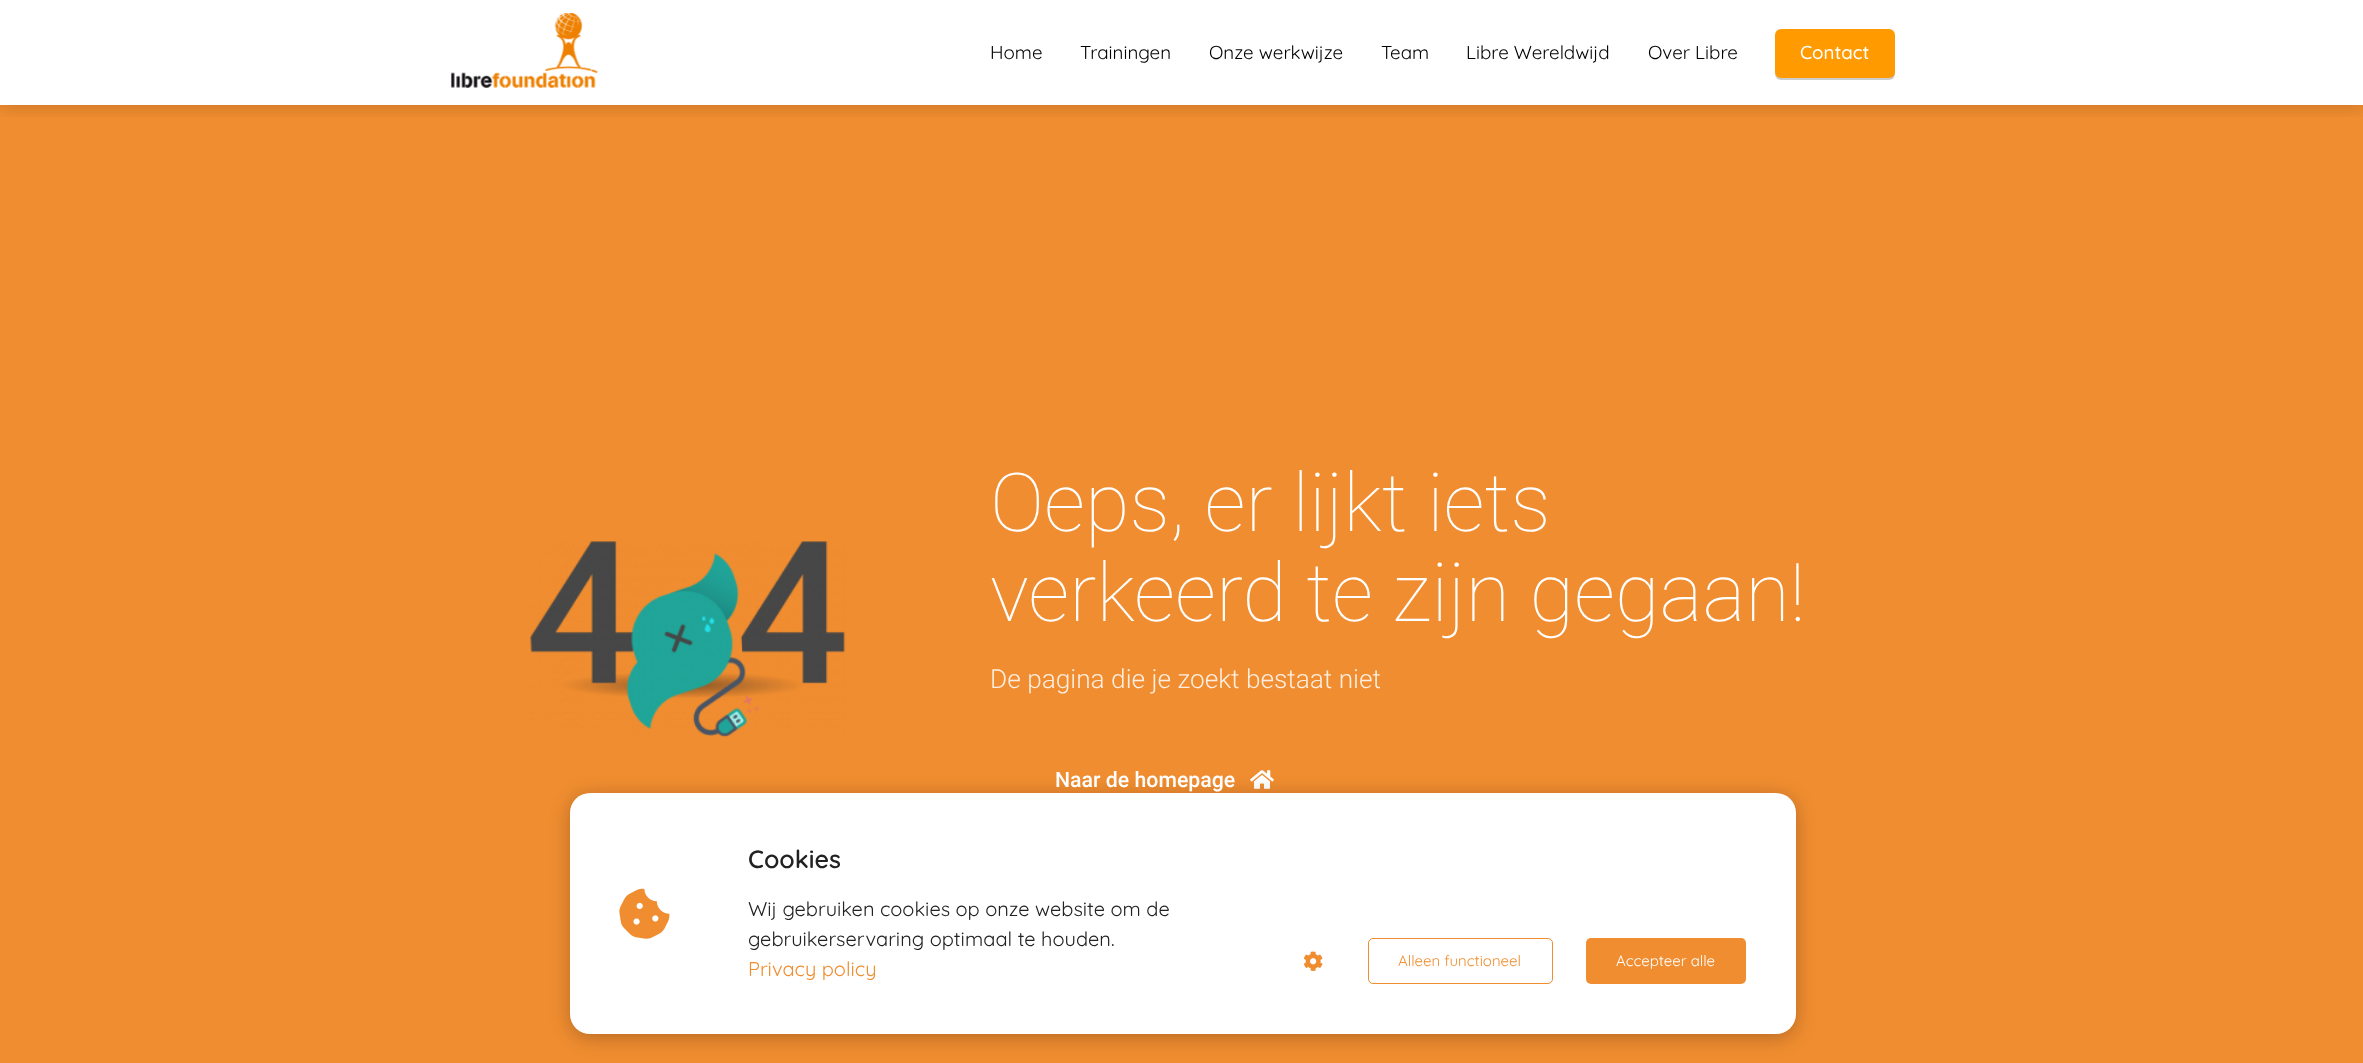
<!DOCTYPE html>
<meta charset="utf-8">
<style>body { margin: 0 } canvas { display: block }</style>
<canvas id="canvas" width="2363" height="1063"></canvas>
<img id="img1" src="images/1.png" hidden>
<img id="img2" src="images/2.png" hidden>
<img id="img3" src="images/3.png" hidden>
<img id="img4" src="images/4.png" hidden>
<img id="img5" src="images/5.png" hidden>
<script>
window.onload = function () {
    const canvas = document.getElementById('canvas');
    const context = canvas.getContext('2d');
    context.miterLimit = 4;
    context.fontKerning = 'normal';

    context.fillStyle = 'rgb(255, 255, 255)';
    context.fillRect(0, 0, 2363, 1063);
    context.fillStyle = 'rgb(240, 141, 48)';
    context.fillRect(0, 105, 2363, 958);
    context.save();
    context.beginPath();
    context.rect(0, 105, 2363, 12);
    context.clip();
    context.fillStyle = 'rgba(0, 0, 0, 0.2)';
    context.filter = 'blur(9.5px)';
    context.beginPath();
    context.rect(0, 0, 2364, 105);
    context.fill();
    context.filter = 'none';
    context.restore();
    context.drawImage(document.getElementById('img1'), 450, 13, 148, 75);
    context.fillStyle = 'rgba(0, 0, 0, 0.2)';
    context.filter = 'blur(0.5px)';
    context.beginPath();
    context.roundRect(1775, 31, 120, 49, 6);
    context.fill();
    context.filter = 'none';
    context.fillStyle = 'rgb(255, 155, 0)';
    context.beginPath();
    context.roundRect(1775, 29, 120, 49, 6);
    context.fill();
    context.drawImage(document.getElementById('img2'), 530, 541, 316, 197);
    context.drawImage(document.getElementById('img3'), 1250, 770, 24, 19);
    context.fillStyle = 'rgba(0, 0, 0, 0.24)';
    context.filter = 'blur(9.5px)';
    context.beginPath();
    context.roundRect(570, 796, 1226, 242, 20);
    context.fill();
    context.filter = 'none';
    context.fillStyle = 'rgb(255, 255, 255)';
    context.beginPath();
    context.roundRect(570, 793, 1226, 241, 20);
    context.fill();
    context.drawImage(document.getElementById('img4'), 619, 888, 51, 51);
    context.drawImage(document.getElementById('img5'), 1303, 951, 20, 20);
    context.beginPath();
    context.roundRect(1368.5, 938.5, 184, 45, 4.5);
    context.strokeStyle = 'rgb(240, 141, 48)';
    context.stroke();
    context.fillStyle = 'rgb(240, 141, 48)';
    context.beginPath();
    context.roundRect(1586, 938, 160, 46, 5);
    context.fill();
    context.font = '18.75px Quicksand';
    context.fillStyle = 'rgb(0, 0, 0)';
    context.fillText('Home', 990, 59);
    context.fillText('Trainingen', 1080, 59);
    context.fillText('Onze werkwijze', 1209, 59);
    context.fillText('Team', 1381, 59);
    context.fillText('Libre Wereldwijd', 1466, 59);
    context.fillText('Over Libre', 1648, 59);
    context.font = '500 18.75px Quicksand';
    context.fillStyle = 'rgb(255, 255, 255)';
    context.fillText('Contact', 1800, 59);
    context.font = '100 81.25px Roboto';
    context.fillText('Oeps, er lijkt iets', 990, 531);
    context.fillText('verkeerd te zijn gegaan!', 990, 621);
    context.font = '300 26.25px Roboto';
    context.fillStyle = 'rgb(253, 238, 224)';
    context.fillText('De pagina die je zoekt bestaat niet', 990, 688);
    context.font = '500 21.25px Roboto';
    context.fillStyle = 'rgb(255, 255, 255)';
    context.fillText('Naar de homepage', 1055, 787);
    context.font = '600 25px Quicksand';
    context.fillStyle = 'rgb(34, 34, 34)';
    context.fillText('Cookies', 748, 868);
    context.font = '20px Quicksand';
    context.fillText('Wij gebruiken cookies op onze website om de', 748, 916);
    context.fillText('gebruikerservaring optimaal te houden.', 748, 946);
    context.fillStyle = 'rgb(240, 141, 48)';
    context.fillText('Privacy policy', 748, 976);
    context.font = '15px Quicksand';
    context.fillText('Alleen functioneel', 1398, 966);
    context.fillStyle = 'rgb(255, 255, 255)';
    context.fillText('Accepteer alle', 1616, 966);
};
</script>
